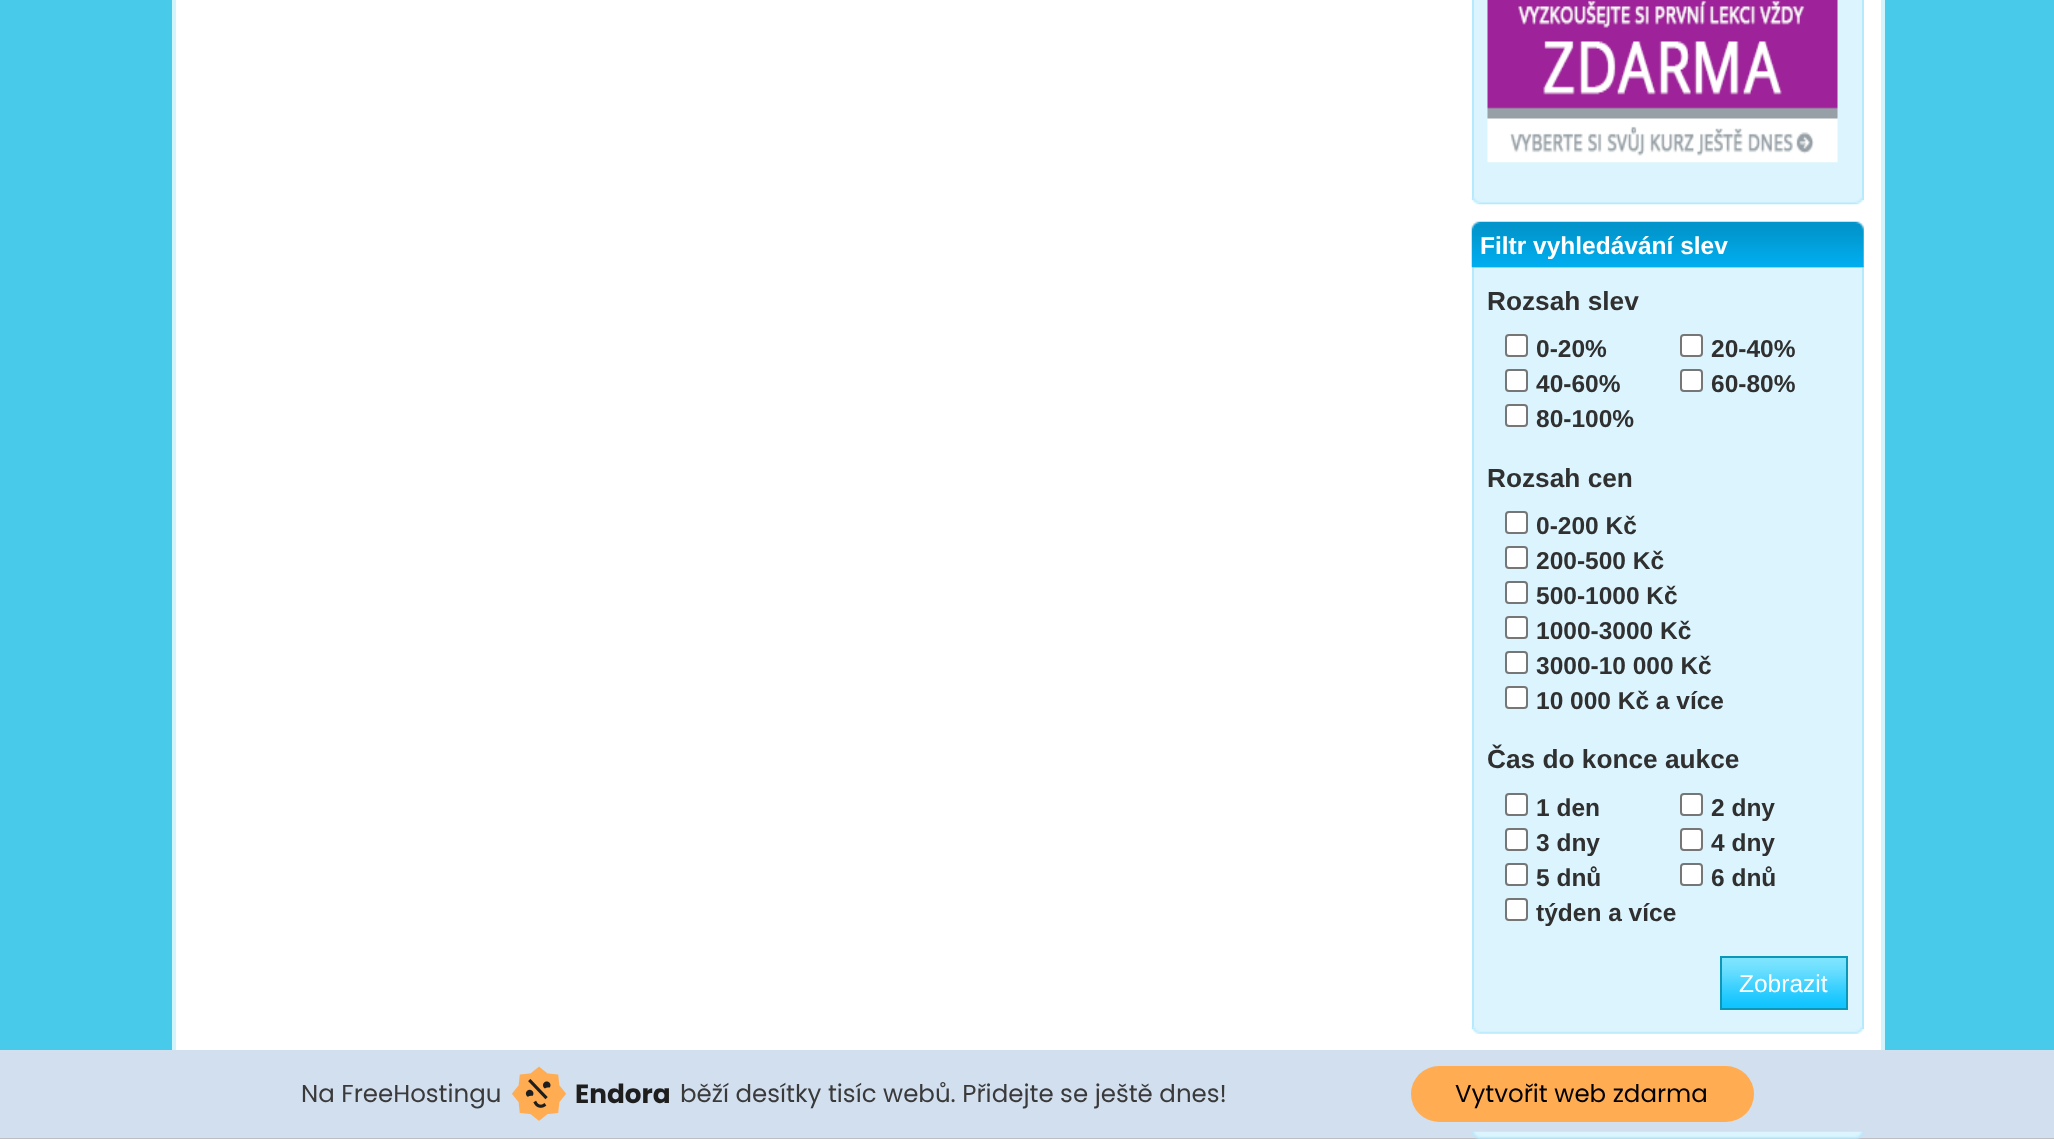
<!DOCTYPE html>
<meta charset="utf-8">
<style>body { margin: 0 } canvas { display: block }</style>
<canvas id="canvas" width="2054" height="1139"></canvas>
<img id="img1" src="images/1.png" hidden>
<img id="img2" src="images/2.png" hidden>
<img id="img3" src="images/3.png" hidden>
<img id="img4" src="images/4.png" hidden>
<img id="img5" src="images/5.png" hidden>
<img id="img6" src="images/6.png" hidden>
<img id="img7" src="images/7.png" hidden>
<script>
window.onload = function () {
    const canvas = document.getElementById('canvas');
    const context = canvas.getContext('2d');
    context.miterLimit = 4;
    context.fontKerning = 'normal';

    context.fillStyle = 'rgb(72, 202, 235)';
    context.fillRect(0, 0, 2054, 1139);
    context.fillStyle = 'rgb(255, 255, 255)';
    context.fillRect(176, 0, 1705, 1050);
    context.strokeStyle = 'rgb(209, 244, 253)';
    context.lineWidth = 4;
    context.strokeRect(174, -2, 1709, 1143);
    context.fillStyle = 'rgb(219, 244, 253)';
    context.beginPath();
    context.rect(1473, -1, 390, 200);
    context.fill();
    context.strokeStyle = 'rgb(181, 234, 254)';
    context.lineWidth = 2;
    context.stroke();
    context.drawImage(document.getElementById('img1'), 1487, 0, 351, 163);
    context.drawImage(document.getElementById('img2'), 1471, 197, 393, 8);
    context.beginPath();
    context.rect(1473, 267, 390, 761);
    context.fill();
    context.stroke();
    context.drawImage(document.getElementById('img3'), 1471, 221, 393, 47);
    context.fillStyle = 'rgb(255, 255, 255)';
    context.beginPath();
    context.roundRect(1506, 335, 21, 21, 3);
    context.fill();
    context.strokeStyle = 'rgb(118, 118, 118)';
    context.stroke();
    context.beginPath();
    context.roundRect(1681, 335, 21, 21, 3);
    context.fill();
    context.stroke();
    context.beginPath();
    context.roundRect(1506, 370, 21, 21, 3);
    context.fill();
    context.stroke();
    context.beginPath();
    context.roundRect(1681, 370, 21, 21, 3);
    context.fill();
    context.stroke();
    context.beginPath();
    context.roundRect(1506, 405, 21, 21, 3);
    context.fill();
    context.stroke();
    context.beginPath();
    context.roundRect(1506, 512, 21, 21, 3);
    context.fill();
    context.stroke();
    context.beginPath();
    context.roundRect(1506, 547, 21, 21, 3);
    context.fill();
    context.stroke();
    context.beginPath();
    context.roundRect(1506, 582, 21, 21, 3);
    context.fill();
    context.stroke();
    context.beginPath();
    context.roundRect(1506, 617, 21, 21, 3);
    context.fill();
    context.stroke();
    context.beginPath();
    context.roundRect(1506, 652, 21, 21, 3);
    context.fill();
    context.stroke();
    context.beginPath();
    context.roundRect(1506, 687, 21, 21, 3);
    context.fill();
    context.stroke();
    context.beginPath();
    context.roundRect(1506, 794, 21, 21, 3);
    context.fill();
    context.stroke();
    context.beginPath();
    context.roundRect(1681, 794, 21, 21, 3);
    context.fill();
    context.stroke();
    context.beginPath();
    context.roundRect(1506, 829, 21, 21, 3);
    context.fill();
    context.stroke();
    context.beginPath();
    context.roundRect(1681, 829, 21, 21, 3);
    context.fill();
    context.stroke();
    context.beginPath();
    context.roundRect(1506, 864, 21, 21, 3);
    context.fill();
    context.stroke();
    context.beginPath();
    context.roundRect(1681, 864, 21, 21, 3);
    context.fill();
    context.stroke();
    context.beginPath();
    context.roundRect(1506, 899, 21, 21, 3);
    context.fill();
    context.stroke();
    context.drawImage(document.getElementById('img4'), 1722, 958, 124, 50);
    context.strokeStyle = 'rgb(12, 150, 184)';
    context.strokeRect(1721, 957, 126, 52);
    context.drawImage(document.getElementById('img5'), 1471, 1027, 393, 7);
    context.fillStyle = 'rgb(210, 223, 239)';
    context.fillRect(0, 1050, 2054, 88);
    context.fillStyle = 'rgb(190, 191, 196)';
    context.fillRect(0, 1138, 2054, 1);
    context.drawImage(document.getElementById('img6'), 1471, 1131, 393, 8);
    context.drawImage(document.getElementById('img7'), 511, 1066, 56, 55);
    context.fillStyle = 'rgb(255, 172, 82)';
    context.beginPath();
    context.roundRect(1411, 1066, 343, 56, 28);
    context.fill();
    context.font = 'bold 24.5px Liberation Sans';
    context.fillStyle = 'rgb(255, 255, 255)';
    context.fillText('Filtr vyhledávání slev', 1480, 254);
    context.font = 'bold 26.25px Liberation Sans';
    context.fillStyle = 'rgb(48, 48, 48)';
    context.fillText('Rozsah slev', 1487, 310);
    context.font = 'bold 24.5px Liberation Sans';
    context.fillText('0-20%', 1536, 357);
    context.fillText('20-40%', 1711, 357);
    context.fillText('40-60%', 1536, 392);
    context.fillText('60-80%', 1711, 392);
    context.fillText('80-100%', 1536, 427);
    context.font = 'bold 26.25px Liberation Sans';
    context.fillText('Rozsah cen', 1487, 487);
    context.font = 'bold 24.5px Liberation Sans';
    context.fillText('0-200 Kč', 1536, 534);
    context.fillText('200-500 Kč', 1536, 569);
    context.fillText('500-1000 Kč', 1536, 604);
    context.fillText('1000-3000 Kč', 1536, 639);
    context.fillText('3000-10 000 Kč', 1536, 674);
    context.fillText('10 000 Kč a více', 1536, 709);
    context.font = 'bold 26.25px Liberation Sans';
    context.fillText('Čas do konce aukce', 1487, 768);
    context.font = 'bold 24.5px Liberation Sans';
    context.fillText('1 den', 1536, 816);
    context.fillText('2 dny', 1711, 816);
    context.fillText('3 dny', 1536, 851);
    context.fillText('4 dny', 1711, 851);
    context.fillText('5 dnů', 1536, 886);
    context.fillText('6 dnů', 1711, 886);
    context.fillText('týden a více', 1536, 921);
    context.font = '24.5px Liberation Sans';
    context.fillStyle = 'rgb(255, 255, 255)';
    context.fillText('Zobrazit', 1739, 992);
    context.font = '24.5px Poppins';
    context.fillStyle = 'rgb(58, 58, 58)';
    context.fillText('Na FreeHostingu', 301, 1102);
    context.font = 'bold 26.25px Poppins';
    context.fillStyle = 'rgb(30, 30, 30)';
    context.fillText('Endora', 575, 1103);
    context.font = '24.5px Poppins';
    context.fillStyle = 'rgb(58, 58, 58)';
    context.fillText('běží desítky tisíc webů. Přidejte se ještě dnes!', 680, 1102);
    context.fillStyle = 'rgb(0, 0, 0)';
    context.fillText('Vytvořit web zdarma', 1455, 1102);
};
</script>
